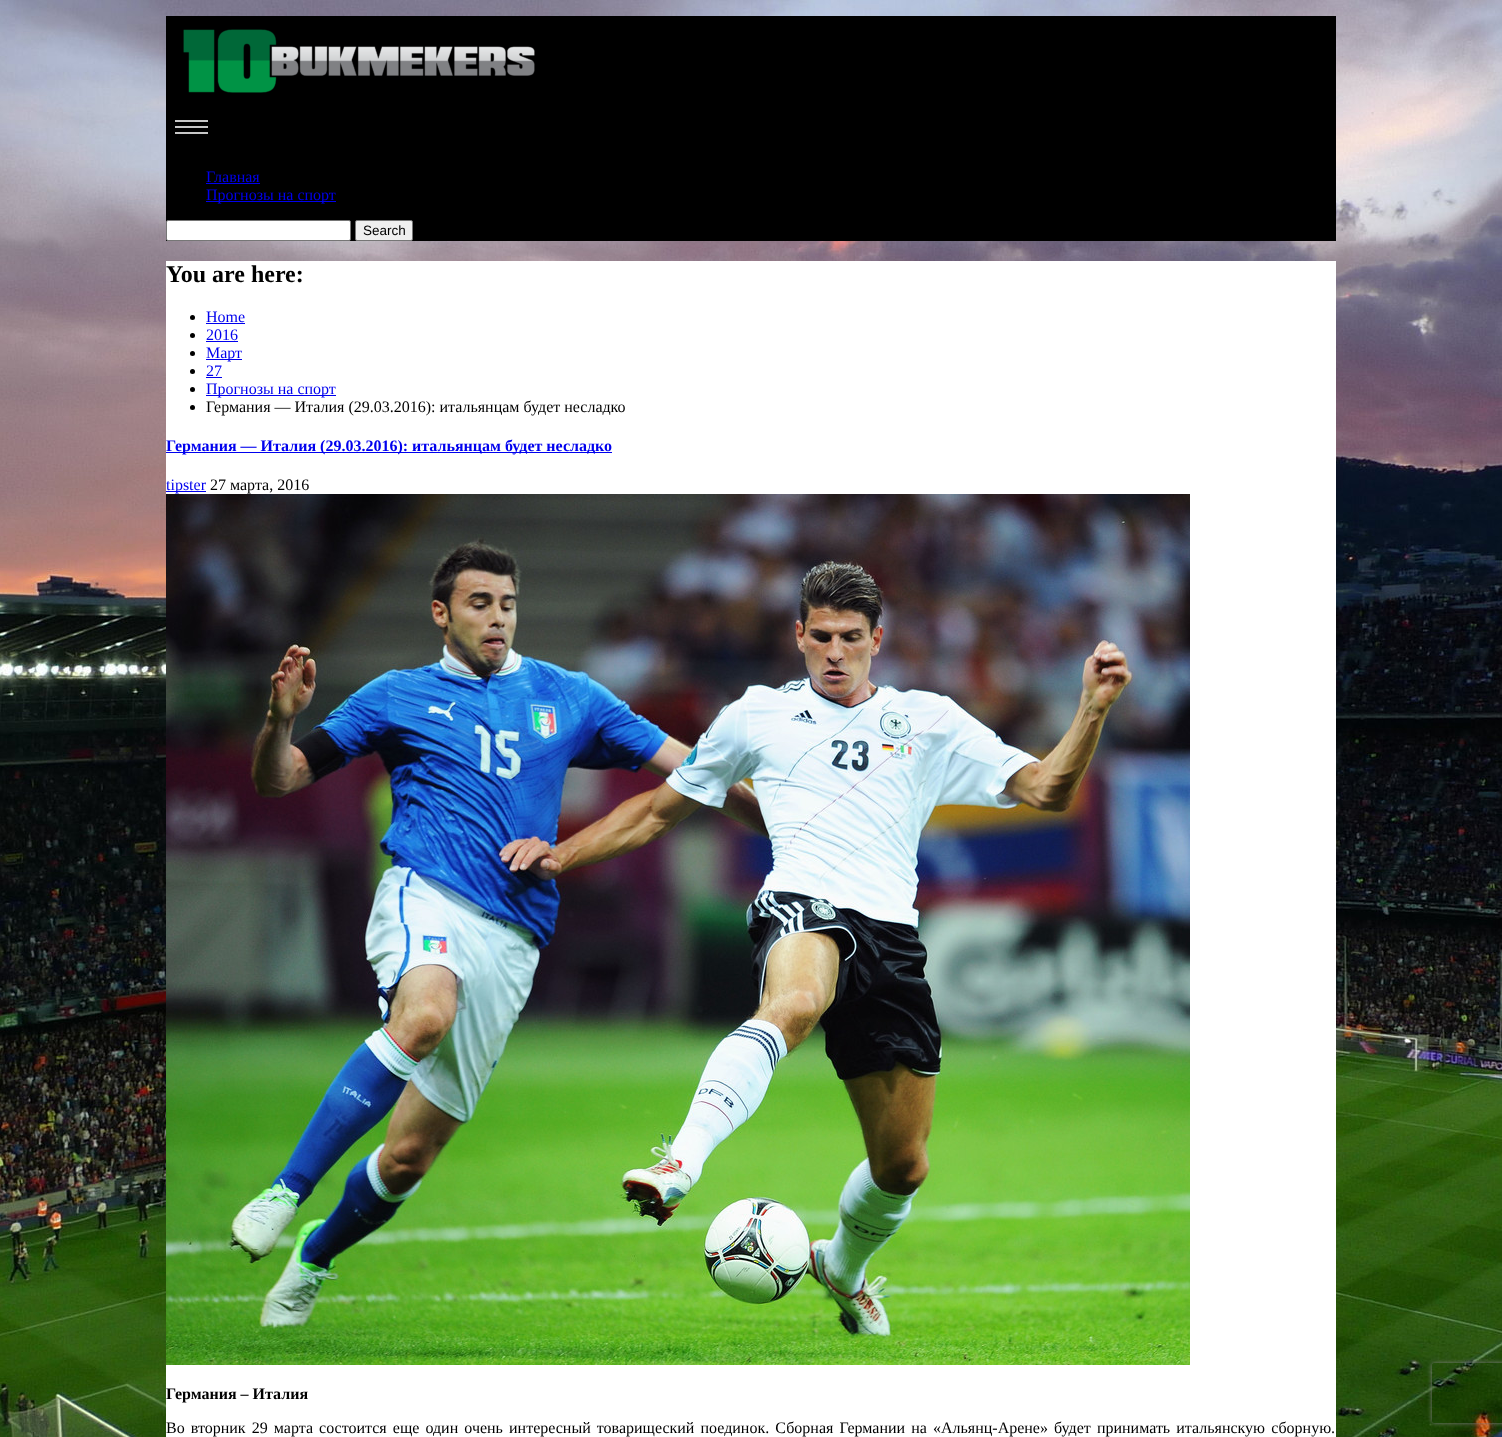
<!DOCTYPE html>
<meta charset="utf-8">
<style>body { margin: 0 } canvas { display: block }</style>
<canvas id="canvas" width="1502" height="1437"></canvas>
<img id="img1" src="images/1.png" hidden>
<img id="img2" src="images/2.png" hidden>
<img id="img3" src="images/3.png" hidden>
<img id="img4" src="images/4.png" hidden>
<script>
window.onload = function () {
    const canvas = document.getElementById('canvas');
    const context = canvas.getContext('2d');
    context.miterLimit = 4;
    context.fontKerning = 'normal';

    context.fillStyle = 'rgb(255, 255, 255)';
    context.fillRect(0, 0, 1502, 1437);
    context.drawImage(document.getElementById('img1'), 0, 0, 1502, 1437);
    context.fillStyle = 'rgb(0, 0, 0)';
    context.fillRect(166, 16, 1170, 225);
    context.drawImage(document.getElementById('img2'), 183, 29, 352, 64);
    context.drawImage(document.getElementById('img3'), 175, 120, 33, 14);
    context.fillStyle = 'rgb(0, 0, 238)';
    context.fillRect(206, 183, 54, 1);
    context.fillRect(206, 201, 130, 1);
    context.fillStyle = 'rgb(255, 255, 255)';
    context.beginPath();
    context.roundRect(166.5, 220.5, 184, 20, 1.5);
    context.fill();
    context.strokeStyle = 'rgb(118, 118, 118)';
    context.stroke();
    context.fillStyle = 'rgb(239, 239, 239)';
    context.beginPath();
    context.roundRect(355.5, 220.5, 57, 20, 1.5);
    context.fill();
    context.stroke();
    context.fillStyle = 'rgb(255, 255, 255)';
    context.fillRect(166, 261, 1170, 1176);
    context.fillStyle = 'rgb(0, 0, 0)';
    context.beginPath();
    context.arc(192.5, 317.5, 2.5, 0, 2 * Math.PI);
    context.fill();
    context.fillStyle = 'rgb(0, 0, 238)';
    context.fillRect(206, 323, 39, 1);
    context.fillStyle = 'rgb(0, 0, 0)';
    context.beginPath();
    context.arc(192.5, 335.5, 2.5, 0, 2 * Math.PI);
    context.fill();
    context.fillStyle = 'rgb(0, 0, 238)';
    context.fillRect(206, 341, 32, 1);
    context.fillStyle = 'rgb(0, 0, 0)';
    context.beginPath();
    context.arc(192.5, 353.5, 2.5, 0, 2 * Math.PI);
    context.fill();
    context.fillStyle = 'rgb(0, 0, 238)';
    context.fillRect(206, 359, 36, 1);
    context.fillStyle = 'rgb(0, 0, 0)';
    context.beginPath();
    context.arc(192.5, 371.5, 2.5, 0, 2 * Math.PI);
    context.fill();
    context.fillStyle = 'rgb(0, 0, 238)';
    context.fillRect(206, 377, 16, 1);
    context.fillStyle = 'rgb(0, 0, 0)';
    context.beginPath();
    context.arc(192.5, 389.5, 2.5, 0, 2 * Math.PI);
    context.fill();
    context.fillStyle = 'rgb(0, 0, 238)';
    context.fillRect(206, 395, 130, 1);
    context.fillStyle = 'rgb(0, 0, 0)';
    context.beginPath();
    context.arc(192.5, 407.5, 2.5, 0, 2 * Math.PI);
    context.fill();
    context.fillStyle = 'rgb(0, 0, 238)';
    context.fillRect(166, 452, 446, 1);
    context.fillRect(166, 491, 40, 1);
    context.drawImage(document.getElementById('img4'), 166, 494, 1024, 871);
    context.save();
    context.beginPath();
    context.moveTo(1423, 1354);
    context.lineTo(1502, 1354);
    context.lineTo(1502, 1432);
    context.lineTo(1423, 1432);
    context.closePath();
    context.moveTo(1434, 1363);
    context.lineTo(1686, 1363);
    context.bezierCurveTo(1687, 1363, 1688, 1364, 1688, 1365);
    context.lineTo(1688, 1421);
    context.bezierCurveTo(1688, 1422, 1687, 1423, 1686, 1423);
    context.lineTo(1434, 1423);
    context.bezierCurveTo(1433, 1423, 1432, 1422, 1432, 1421);
    context.lineTo(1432, 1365);
    context.bezierCurveTo(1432, 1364, 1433, 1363, 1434, 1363);
    context.closePath();
    context.clip('evenodd');
    context.fillStyle = 'rgb(128, 128, 128)';
    context.filter = 'blur(2.5px)';
    context.beginPath();
    context.roundRect(1432, 1363, 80, 60, 2);
    context.fill();
    context.filter = 'none';
    context.restore();
    context.font = '16px Liberation Serif';
    context.fillText('Главная', 206, 182);
    context.fillText('Прогнозы на спорт', 206, 200);
    context.font = '13.5px Liberation Sans';
    context.fillStyle = 'rgb(0, 0, 0)';
    context.fillText('Search', 363, 235);
    context.font = 'bold 24px Liberation Serif';
    context.fillText('You are here:', 166, 282);
    context.font = '16px Liberation Serif';
    context.fillStyle = 'rgb(0, 0, 238)';
    context.fillText('Home', 206, 322);
    context.fillText('2016', 206, 340);
    context.fillText('Март', 206, 358);
    context.fillText('27', 206, 376);
    context.fillText('Прогнозы на спорт', 206, 394);
    context.fillStyle = 'rgb(0, 0, 0)';
    context.fillText('Германия — Италия (29.03.2016): итальянцам будет несладко', 206, 412);
    context.font = 'bold 16px Liberation Serif';
    context.fillStyle = 'rgb(0, 0, 238)';
    context.fillText('Германия — Италия (29.03.2016): итальянцам будет несладко', 166, 451);
    context.font = '16px Liberation Serif';
    context.fillText('tipster', 166, 490);
    context.fillStyle = 'rgb(0, 0, 0)';
    context.fillText('27 марта, 2016', 210, 490);
    context.font = 'bold 16px Liberation Serif';
    context.fillText('Германия – Италия', 166, 1399);
    context.wordSpacing = '2.1px';
    context.font = '16px Liberation Serif';
    context.fillText('Во вторник 29 марта состоится еще один очень интересный товарищеский поединок. Сборная Германии на «Альянц-Арене» будет принимать итальянскую сборную.', 166, 1433);
};
</script>
